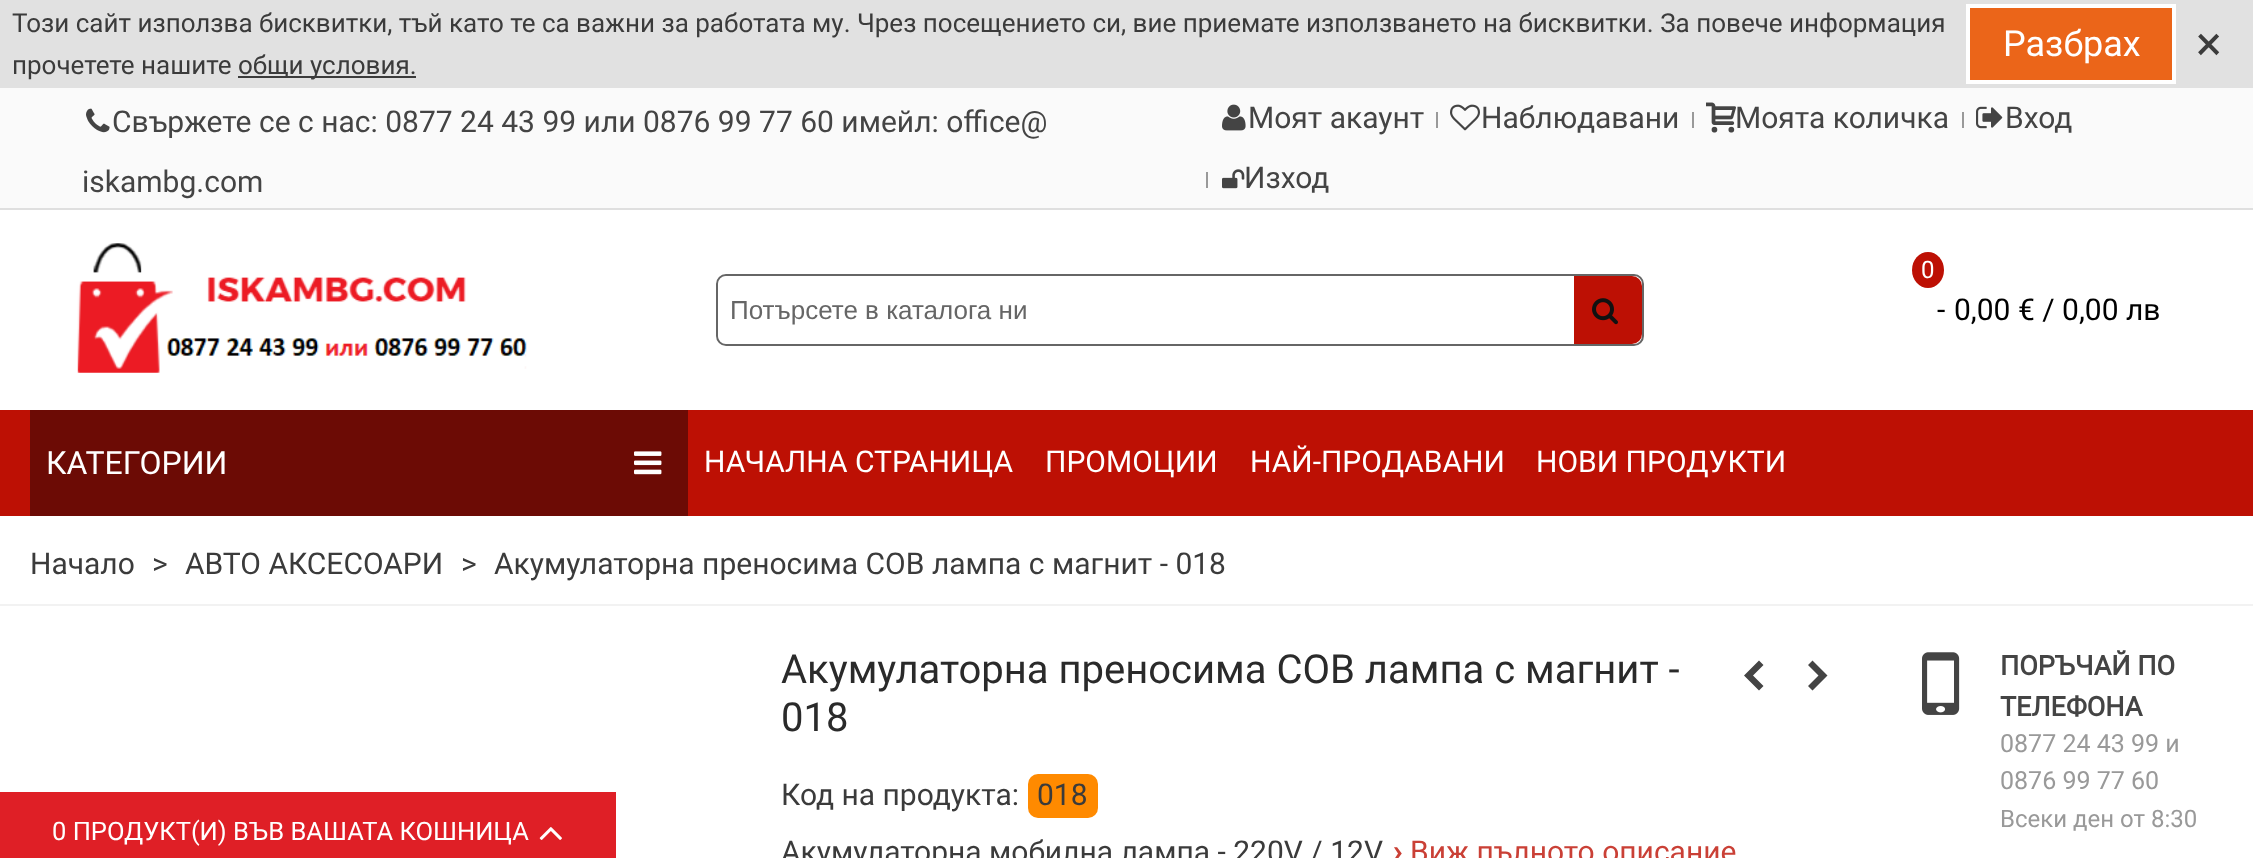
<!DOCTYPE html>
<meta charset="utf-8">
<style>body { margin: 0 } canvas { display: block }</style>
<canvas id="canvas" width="2253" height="858"></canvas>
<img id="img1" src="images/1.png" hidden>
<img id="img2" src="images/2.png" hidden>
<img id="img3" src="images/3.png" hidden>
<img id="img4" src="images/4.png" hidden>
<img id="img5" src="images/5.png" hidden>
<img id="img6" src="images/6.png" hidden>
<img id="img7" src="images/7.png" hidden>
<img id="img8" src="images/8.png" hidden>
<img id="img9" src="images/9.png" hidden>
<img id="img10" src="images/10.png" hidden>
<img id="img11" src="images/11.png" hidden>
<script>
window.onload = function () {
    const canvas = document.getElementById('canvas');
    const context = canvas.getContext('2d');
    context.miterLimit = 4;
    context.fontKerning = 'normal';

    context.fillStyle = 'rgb(255, 255, 255)';
    context.fillRect(0, 0, 2253, 858);
    context.fillStyle = 'rgb(225, 225, 225)';
    context.fillRect(0, 0, 2253, 88);
    context.fillStyle = 'rgb(59, 59, 59)';
    context.fillRect(238, 76, 178, 2);
    context.fillStyle = 'rgb(235, 101, 25)';
    context.beginPath();
    context.rect(1968, 6, 206, 76);
    context.fill();
    context.strokeStyle = 'rgb(255, 255, 255)';
    context.lineWidth = 4;
    context.stroke();
    context.fillStyle = 'rgb(250, 250, 250)';
    context.fillRect(0, 88, 2253, 120);
    context.fillStyle = 'rgb(223, 223, 223)';
    context.fillRect(0, 208, 2253, 2);
    context.drawImage(document.getElementById('img1'), 86, 108, 24, 25);
    context.drawImage(document.getElementById('img2'), 1222, 104, 24, 27);
    context.fillStyle = 'rgb(153, 153, 153)';
    context.fillRect(1436, 112, 2, 16);
    context.drawImage(document.getElementById('img3'), 1450, 104, 30, 27);
    context.fillRect(1692, 112, 2, 16);
    context.drawImage(document.getElementById('img4'), 1706, 102, 30, 31);
    context.fillRect(1962, 112, 2, 16);
    context.drawImage(document.getElementById('img5'), 1976, 106, 27, 23);
    context.fillRect(1206, 172, 2, 16);
    context.drawImage(document.getElementById('img6'), 1222, 169, 23, 20);
    context.drawImage(document.getElementById('img7'), 77, 243, 450, 130);
    context.beginPath();
    context.roundRect(717, 275, 926, 70, 9);
    context.strokeStyle = 'rgb(102, 102, 102)';
    context.lineWidth = 2;
    context.stroke();
    context.fillStyle = 'rgb(255, 255, 255)';
    context.beginPath();
    context.roundRect(718, 276, 858, 68, [10, 0, 0, 10]);
    context.fill();
    context.fillStyle = 'rgb(189, 16, 4)';
    context.beginPath();
    context.roundRect(1574, 276, 68, 68, [0, 10, 10, 0]);
    context.fill();
    context.drawImage(document.getElementById('img8'), 1592, 298, 26, 27);
    context.beginPath();
    context.ellipse(1928, 270, 16, 18, 0, 0, 2 * Math.PI);
    context.fill();
    context.fillRect(0, 410, 2253, 106);
    context.fillStyle = 'rgb(108, 11, 5)';
    context.fillRect(30, 410, 658, 106);
    context.drawImage(document.getElementById('img9'), 634, 451, 28, 24);
    context.fillStyle = 'rgb(242, 242, 242)';
    context.fillRect(0, 604, 2253, 2);
    context.fillStyle = 'rgb(68, 68, 68)';
    context.beginPath();
    context.moveTo(1744, 675.5);
    context.lineTo(1759, 660.5);
    context.lineTo(1763.5, 665);
    context.lineTo(1753, 675.5);
    context.lineTo(1763.5, 686);
    context.lineTo(1759, 690.5);
    context.closePath();
    context.fill();
    context.beginPath();
    context.moveTo(1808, 686);
    context.lineTo(1818.5, 675.5);
    context.lineTo(1808, 665);
    context.lineTo(1812.5, 660.5);
    context.lineTo(1827.5, 675.5);
    context.lineTo(1812.5, 690.5);
    context.closePath();
    context.fill();
    context.fillStyle = 'rgb(255, 138, 0)';
    context.beginPath();
    context.roundRect(1028, 774, 70, 44, 10);
    context.fill();
    context.drawImage(document.getElementById('img10'), 1922, 652, 38, 63);
    context.fillStyle = 'rgb(223, 31, 38)';
    context.fillRect(0, 792, 616, 66);
    context.drawImage(document.getElementById('img11'), 539, 827, 23, 13);
    context.font = '26px Roboto';
    context.fillStyle = 'rgb(59, 59, 59)';
    context.fillText('Този сайт използва бисквитки, тъй като те са важни за работата му. Чрез посещението си, вие приемате използването на бисквитки. За повече информация', 12, 32);
    context.fillText('прочетете нашите', 12, 74);
    context.fillText('общи условия.', 238, 74);
    context.font = '36px Roboto';
    context.fillStyle = 'rgb(255, 255, 255)';
    context.fillText('Разбрах', 2003, 56);
    context.font = '48px Roboto';
    context.fillStyle = 'rgb(59, 59, 59)';
    context.fillText('×', 2196, 60);
    context.font = '30px Roboto';
    context.fillStyle = 'rgb(68, 68, 68)';
    context.fillText('Свържете се с нас: 0877 24 43 99 или 0876 99 77 60 имейл: office@', 112, 132);
    context.fillText('iskambg.com', 82, 192);
    context.fillText('Моят акаунт', 1248, 128);
    context.fillText('Наблюдавани', 1481, 128);
    context.fillText('Моята количка', 1735, 128);
    context.fillText('Вход', 2005, 128);
    context.fillText('Изход', 1244, 188);
    context.font = '26px Liberation Sans';
    context.fillStyle = 'rgb(102, 102, 102)';
    context.fillText('Потърсете в каталога ни', 730, 319);
    context.font = '24px Roboto';
    context.fillStyle = 'rgb(255, 255, 255)';
    context.fillText('0', 1921, 278);
    context.font = '30px Roboto';
    context.fillStyle = 'rgb(0, 0, 0)';
    context.fillText('-', 1937, 320);
    context.fillText('0,00 € / 0,00 лв', 1954, 320);
    context.font = '32px Roboto';
    context.fillStyle = 'rgb(255, 255, 255)';
    context.fillText('КАТЕГОРИИ', 46, 474);
    context.font = '30px Roboto';
    context.fillText('НАЧАЛНА СТРАНИЦА', 704, 472);
    context.fillText('ПРОМОЦИИ', 1045, 472);
    context.fillText('НАЙ-ПРОДАВАНИ', 1250, 472);
    context.fillText('НОВИ ПРОДУКТИ', 1536, 472);
    context.fillStyle = 'rgb(59, 59, 59)';
    context.fillText('Начало', 30, 574);
    context.fillText('>', 152, 574);
    context.fillText('АВТО АКСЕСОАРИ', 185, 574);
    context.fillText('>', 461, 574);
    context.fillText('Акумулаторна преносима COB лампа с магнит - 018', 494, 574);
    context.font = '40px Roboto';
    context.fillStyle = 'rgb(42, 42, 42)';
    context.fillText('Акумулаторна преносима COB лампа с магнит -', 781, 683);
    context.fillText('018', 781, 731);
    context.font = '30px Roboto';
    context.fillStyle = 'rgb(59, 59, 59)';
    context.fillText('Код на продукта:', 781, 805);
    context.fillText('018', 1037, 805);
    context.fillText('Aкумулаторна мобилна лампа - 220V / 12V', 781, 862);
    context.font = 'bold 30px Roboto';
    context.fillStyle = 'rgb(202, 64, 54)';
    context.fillText('›', 1393, 862);
    context.font = '30px Roboto';
    context.fillText('Виж пълното описание', 1410, 862);
    context.font = 'bold 27px Roboto';
    context.fillStyle = 'rgb(68, 68, 68)';
    context.fillText('ПОРЪЧАЙ ПО', 2000, 675);
    context.fillText('ТЕЛЕФОНА', 2000, 716);
    context.font = '25px Roboto';
    context.fillStyle = 'rgb(153, 153, 153)';
    context.fillText('0877 24 43 99 и', 2000, 752);
    context.fillText('0876 99 77 60', 2000, 789);
    context.font = '24px Roboto';
    context.fillText('Всеки ден от 8:30', 2000, 827);
    context.font = '25.5px Roboto';
    context.fillStyle = 'rgb(255, 255, 255)';
    context.fillText('0 ПРОДУКТ(И) ВЪВ ВАШАТА КОШНИЦА', 52, 840);
};
</script>
